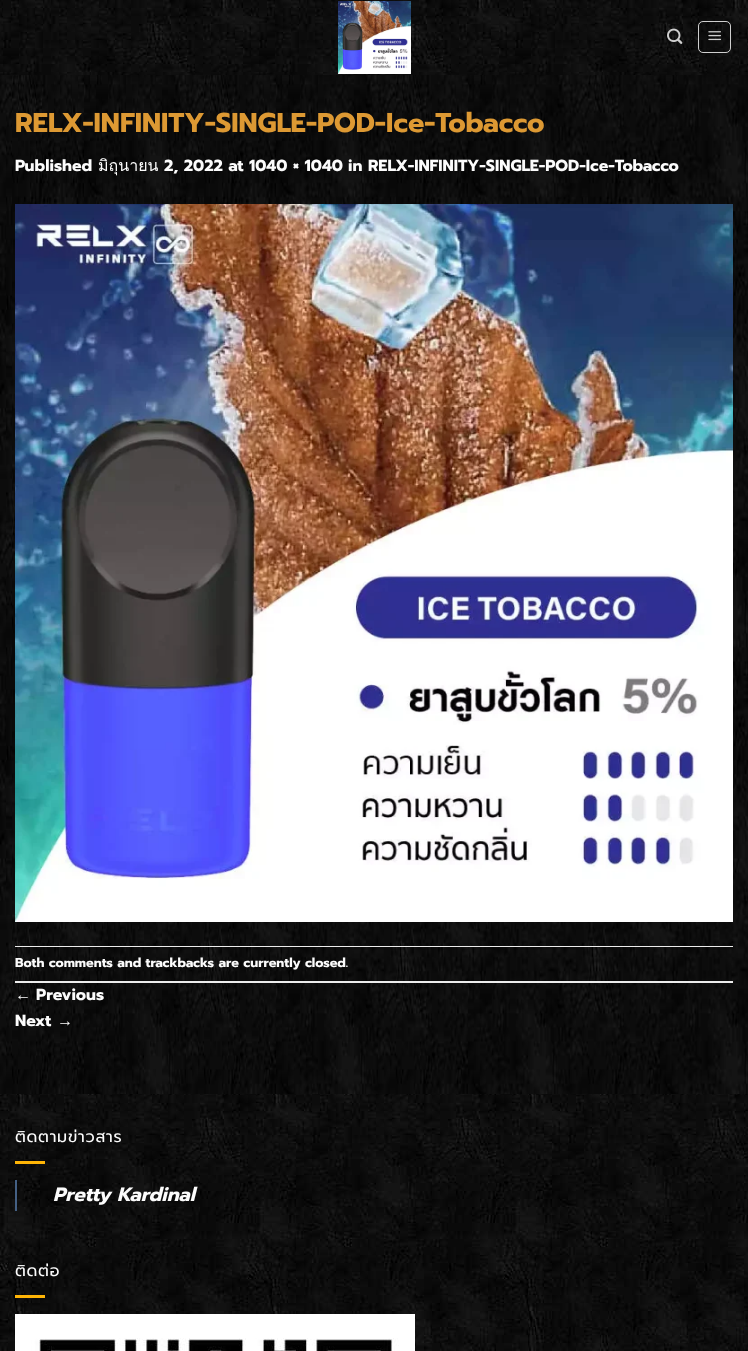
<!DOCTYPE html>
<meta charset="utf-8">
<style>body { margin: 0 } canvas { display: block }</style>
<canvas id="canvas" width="748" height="1351"></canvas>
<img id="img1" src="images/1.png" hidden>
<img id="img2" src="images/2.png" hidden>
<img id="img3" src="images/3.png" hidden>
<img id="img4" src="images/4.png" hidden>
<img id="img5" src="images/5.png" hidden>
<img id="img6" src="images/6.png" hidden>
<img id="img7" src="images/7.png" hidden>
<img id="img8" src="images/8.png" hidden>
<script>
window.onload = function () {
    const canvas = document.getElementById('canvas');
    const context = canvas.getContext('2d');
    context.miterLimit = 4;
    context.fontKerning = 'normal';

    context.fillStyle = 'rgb(255, 255, 255)';
    context.fillRect(0, 0, 748, 1351);
    context.drawImage(document.getElementById('img1'), 0, 75, 748, 1019);
    context.drawImage(document.getElementById('img2'), 0, 0, 748, 75);
    context.drawImage(document.getElementById('img3'), 338, 1, 73, 73);
    context.drawImage(document.getElementById('img4'), 667, 28, 16, 16);
    context.beginPath();
    context.roundRect(698.5, 21.5, 32, 31, 4.5);
    context.strokeStyle = 'rgba(255, 255, 255, 0.8)';
    context.stroke();
    context.drawImage(document.getElementById('img5'), 708, 31, 13, 10);
    context.drawImage(document.getElementById('img6'), 15, 204, 718, 718);
    context.fillStyle = 'rgb(236, 236, 236)';
    context.fillRect(15, 946, 718, 1);
    context.fillRect(15, 981, 718, 2);
    context.drawImage(document.getElementById('img7'), 0, 1094, 748, 257);
    context.fillStyle = 'rgb(254, 180, 6)';
    context.fillRect(15, 1161, 30, 3);
    context.fillStyle = 'rgb(68, 96, 132)';
    context.fillRect(15, 1180, 2, 31);
    context.fillStyle = 'rgb(254, 180, 6)';
    context.fillRect(15, 1295, 30, 3);
    context.drawImage(document.getElementById('img8'), 15, 1314, 400, 37);
    context.font = 'bold 27.25px Prompt';
    context.fillStyle = 'rgb(221, 153, 51)';
    context.fillText('RELX-INFINITY-SINGLE-POD-Ice-Tobacco', 15, 132);
    context.font = 'bold 16px Prompt';
    context.fillStyle = 'rgb(252, 252, 252)';
    context.fillText('Published', 15, 171);
    context.font = '16px Loma';
    context.fillText('มิถุนายน', 98, 171);
    context.font = 'bold 16px Prompt';
    context.fillText('2, 2022 at', 164, 171);
    context.fillText('1040 × 1040', 249, 171);
    context.fillText('in', 348, 171);
    context.fillText('RELX-INFINITY-SINGLE-POD-Ice-Tobacco', 368, 171);
    context.font = 'bold 12.8px Prompt';
    context.fillText('Both comments and trackbacks are currently closed.', 15, 967);
    context.font = '16px Liberation Sans';
    context.fillText('←', 15, 1000);
    context.font = 'bold 16px Prompt';
    context.fillText('Previous', 36, 1000);
    context.fillText('Next', 15, 1026);
    context.font = '16px Liberation Sans';
    context.fillText('→', 57, 1026);
    context.letterSpacing = '0.75px';
    context.font = '16px Prompt';
    context.fillText('ติดตามข่าวสาร', 15, 1142);
    context.letterSpacing = '0px';
    context.font = 'italic bold 19.25px Prompt';
    context.fillText('Pretty Kardinal', 53, 1201);
    context.letterSpacing = '0.75px';
    context.font = '16px Prompt';
    context.fillText('ติดต่อ', 15, 1276);
};
</script>
